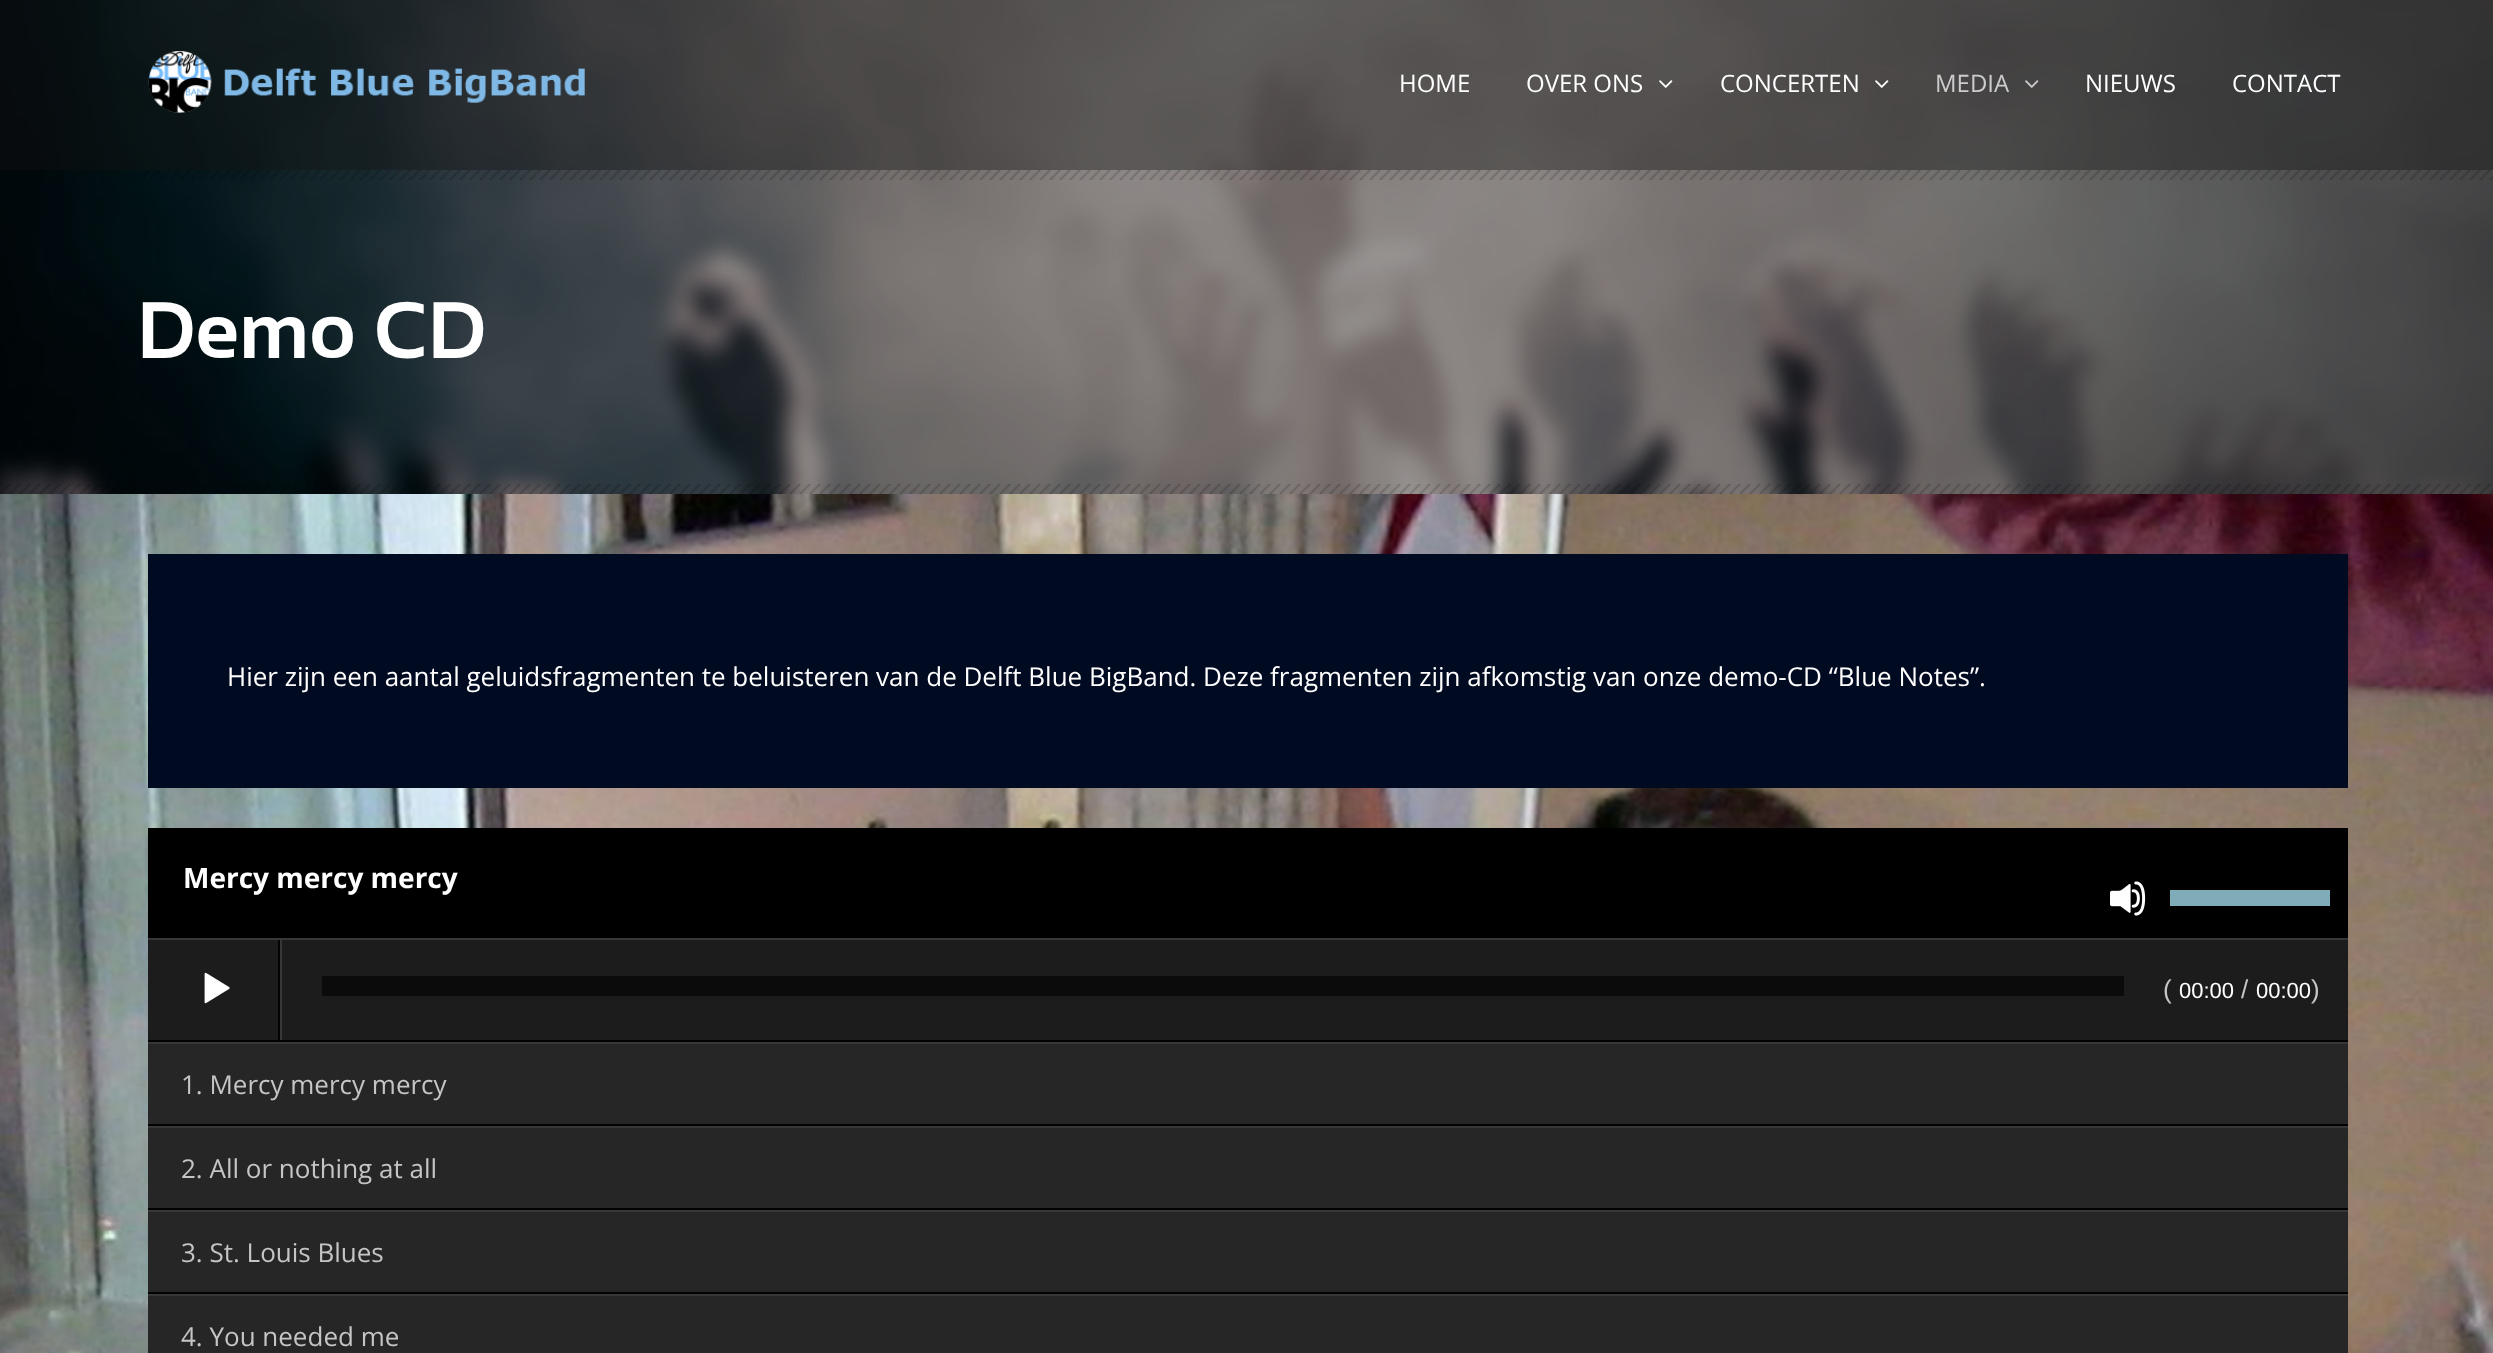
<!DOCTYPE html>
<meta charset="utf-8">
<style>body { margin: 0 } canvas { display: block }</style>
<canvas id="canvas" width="2493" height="1353"></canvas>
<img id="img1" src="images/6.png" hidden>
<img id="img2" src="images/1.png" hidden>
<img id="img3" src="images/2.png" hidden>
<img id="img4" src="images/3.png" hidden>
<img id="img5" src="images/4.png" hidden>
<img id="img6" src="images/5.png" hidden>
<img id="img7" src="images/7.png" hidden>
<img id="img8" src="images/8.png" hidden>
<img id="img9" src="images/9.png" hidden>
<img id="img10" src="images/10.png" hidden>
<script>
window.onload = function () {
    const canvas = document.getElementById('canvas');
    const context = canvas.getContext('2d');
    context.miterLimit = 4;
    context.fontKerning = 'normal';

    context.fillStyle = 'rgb(255, 255, 255)';
    context.fillRect(0, 0, 2493, 1353);
    context.drawImage(document.getElementById('img1'), 0, 0, 2493, 494);
    context.fillStyle = 'rgba(17, 17, 17, 0.4)';
    context.fillRect(0, 0, 2493, 170);
    context.drawImage(document.getElementById('img2'), 148, 51, 437, 62);
    context.drawImage(document.getElementById('img3'), 1659, 80, 14, 8);
    context.drawImage(document.getElementById('img4'), 1875, 80, 14, 8);
    context.drawImage(document.getElementById('img5'), 2025, 80, 14, 8);
    context.drawImage(document.getElementById('img6'), 138, 170, 2355, 10);
    context.drawImage(document.getElementById('img7'), 0, 484, 2493, 10);
    context.drawImage(document.getElementById('img8'), 0, 494, 2493, 859);
    context.fillStyle = 'rgb(0, 11, 33)';
    context.fillRect(148, 554, 2200, 234);
    context.fillStyle = 'rgb(0, 0, 0)';
    context.fillRect(148, 828, 2200, 110);
    context.fillStyle = 'rgb(28, 28, 28)';
    context.fillRect(148, 940, 2200, 100);
    context.fillStyle = 'rgb(55, 55, 55)';
    context.fillRect(148, 938, 2200, 2);
    context.fillStyle = 'rgb(3, 3, 3)';
    context.fillRect(148, 1040, 2200, 2);
    context.drawImage(document.getElementById('img9'), 2110, 881, 36, 35);
    context.fillStyle = 'rgb(127, 172, 183)';
    context.fillRect(2170, 890, 160, 16);
    context.fillStyle = 'rgb(3, 3, 3)';
    context.fillRect(278, 940, 2, 100);
    context.drawImage(document.getElementById('img10'), 204, 972, 26, 32);
    context.fillStyle = 'rgb(55, 55, 55)';
    context.fillRect(280, 940, 2, 100);
    context.fillStyle = 'rgb(11, 11, 11)';
    context.fillRect(322, 976, 1802, 20);
    context.fillStyle = 'rgb(38, 38, 38)';
    context.fillRect(148, 1044, 2200, 80);
    context.fillStyle = 'rgb(55, 55, 55)';
    context.fillRect(148, 1042, 2200, 2);
    context.fillStyle = 'rgb(3, 3, 3)';
    context.fillRect(148, 1124, 2200, 2);
    context.fillStyle = 'rgb(38, 38, 38)';
    context.fillRect(148, 1128, 2200, 80);
    context.fillStyle = 'rgb(55, 55, 55)';
    context.fillRect(148, 1126, 2200, 2);
    context.fillStyle = 'rgb(3, 3, 3)';
    context.fillRect(148, 1208, 2200, 2);
    context.fillStyle = 'rgb(38, 38, 38)';
    context.fillRect(148, 1212, 2200, 80);
    context.fillStyle = 'rgb(55, 55, 55)';
    context.fillRect(148, 1210, 2200, 2);
    context.fillStyle = 'rgb(3, 3, 3)';
    context.fillRect(148, 1292, 2200, 2);
    context.fillStyle = 'rgb(38, 38, 38)';
    context.fillRect(148, 1296, 2200, 57);
    context.fillStyle = 'rgb(55, 55, 55)';
    context.fillRect(148, 1294, 2200, 2);
    context.font = '24px Open Sans';
    context.fillStyle = 'rgb(255, 255, 255)';
    context.fillText('HOME', 1399, 92);
    context.fillText('OVER ONS', 1526, 92);
    context.fillText('CONCERTEN', 1720, 92);
    context.fillStyle = 'rgb(204, 204, 204)';
    context.fillText('MEDIA', 1935, 92);
    context.fillStyle = 'rgb(255, 255, 255)';
    context.fillText('NIEUWS', 2085, 92);
    context.fillText('CONTACT', 2232, 92);
    context.font = 'bold 80px Sansation';
    context.fillText('Demo CD', 137, 358);
    context.font = '26px Open Sans';
    context.fillText('Hier zijn een aantal geluidsfragmenten te beluisteren van de Delft Blue BigBand. Deze fragmenten zijn afkomstig van onze demo-CD “Blue Notes”.', 227, 686);
    context.font = 'bold 28px Open Sans';
    context.fillText('Mercy mercy mercy', 183, 888);
    context.font = '26px Liberation Sans';
    context.fillStyle = 'rgb(197, 197, 197)';
    context.fillText('(', 2163, 998);
    context.font = '22px Liberation Sans';
    context.fillStyle = 'rgb(255, 255, 255)';
    context.fillText('00:00', 2179, 998);
    context.font = '26px Liberation Sans';
    context.fillStyle = 'rgb(197, 197, 197)';
    context.fillText('/', 2241, 998);
    context.font = '22px Liberation Sans';
    context.fillStyle = 'rgb(255, 255, 255)';
    context.fillText('00:00', 2256, 998);
    context.font = '26px Liberation Sans';
    context.fillStyle = 'rgb(197, 197, 197)';
    context.fillText(')', 2311, 998);
    context.font = '26px Open Sans';
    context.fillText('1. Mercy mercy mercy', 181, 1094);
    context.fillText('2. All or nothing at all', 181, 1178);
    context.fillText('3. St. Louis Blues', 181, 1262);
    context.fillText('4. You needed me', 181, 1346);
};
</script>
